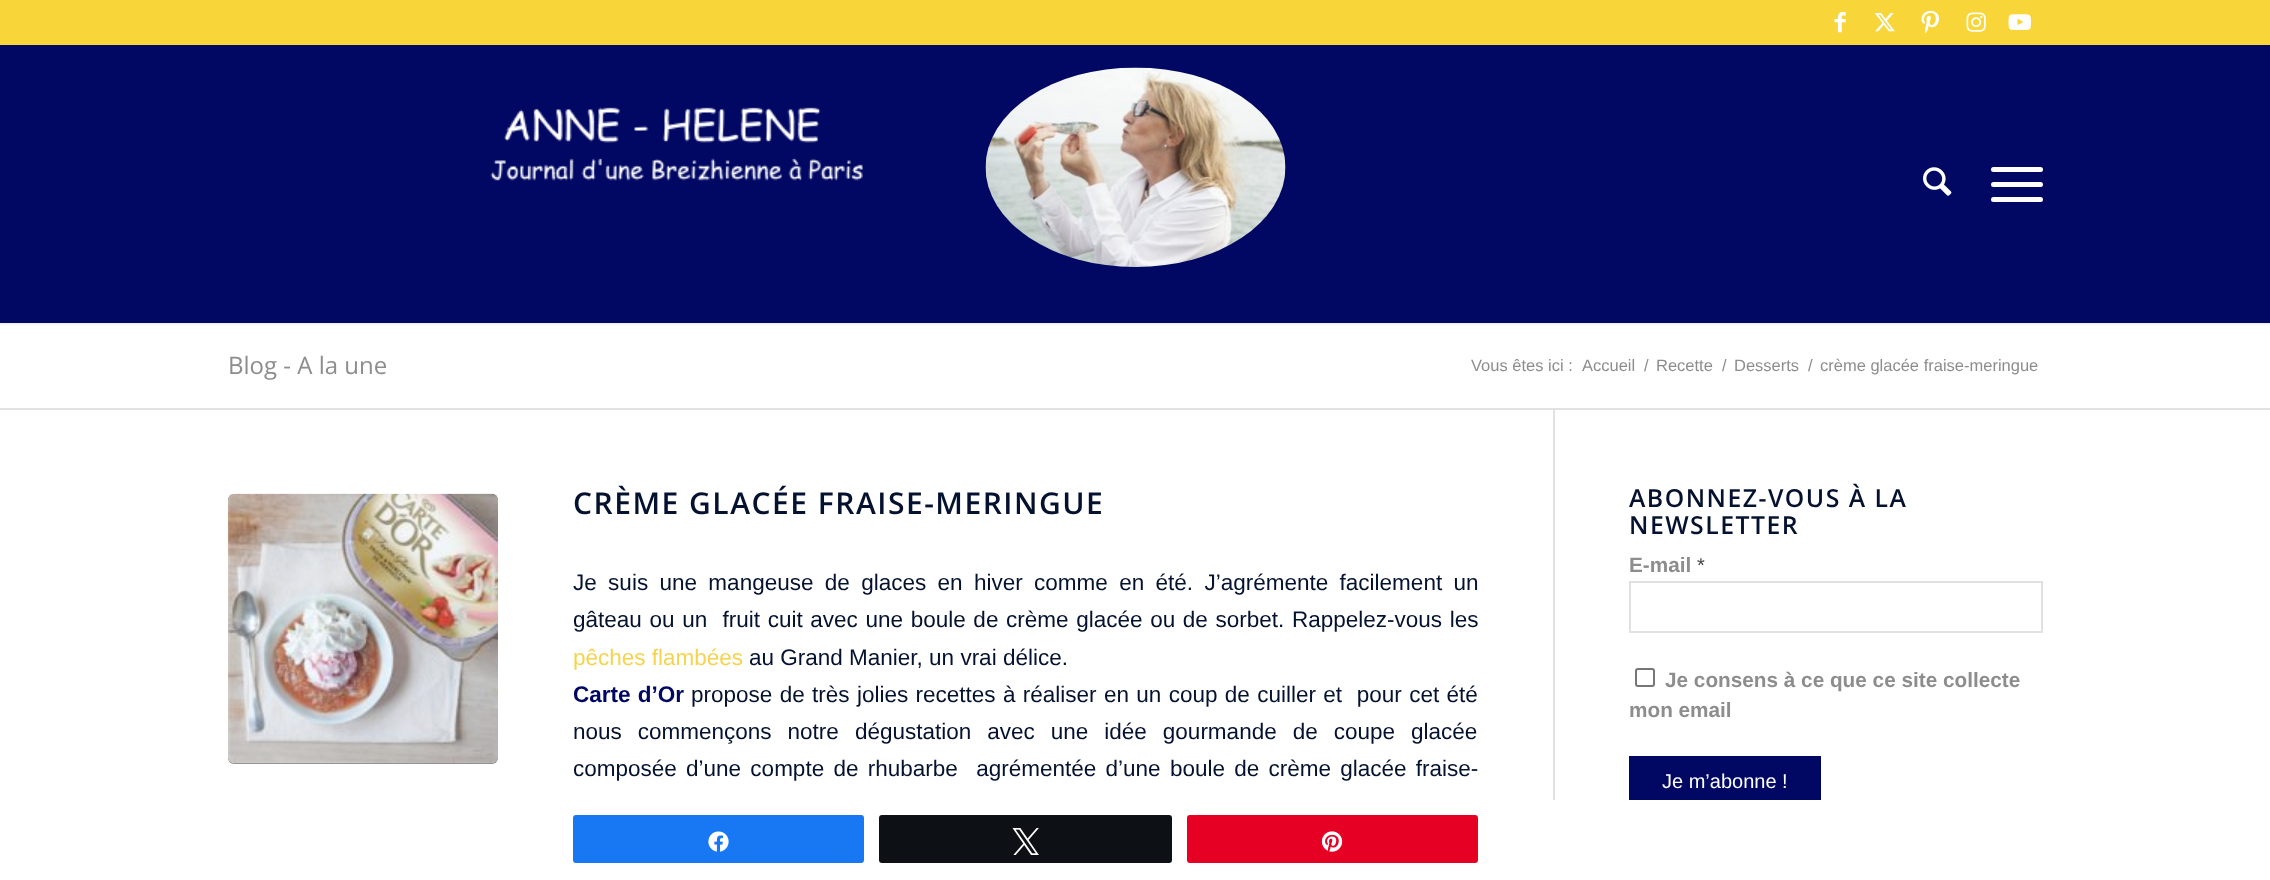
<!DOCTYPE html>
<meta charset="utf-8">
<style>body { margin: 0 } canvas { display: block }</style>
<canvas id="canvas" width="2270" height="880"></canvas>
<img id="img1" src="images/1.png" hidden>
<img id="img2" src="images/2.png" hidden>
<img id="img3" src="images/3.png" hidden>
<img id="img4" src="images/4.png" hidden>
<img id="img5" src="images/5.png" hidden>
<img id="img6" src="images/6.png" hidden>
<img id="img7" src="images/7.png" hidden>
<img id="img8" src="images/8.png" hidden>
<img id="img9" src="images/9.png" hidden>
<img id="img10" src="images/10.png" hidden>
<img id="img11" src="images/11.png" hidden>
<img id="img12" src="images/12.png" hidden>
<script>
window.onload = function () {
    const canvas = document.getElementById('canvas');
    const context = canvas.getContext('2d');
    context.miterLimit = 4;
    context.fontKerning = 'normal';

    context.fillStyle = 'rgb(255, 255, 255)';
    context.fillRect(0, 0, 2270, 880);
    context.fillStyle = 'rgba(0, 0, 0, 0.1)';
    context.filter = 'blur(1.5px)';
    context.beginPath();
    context.rect(-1, -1, 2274, 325);
    context.fill();
    context.filter = 'none';
    context.fillStyle = 'rgb(248, 213, 56)';
    context.fillRect(0, 0, 2270, 45);
    context.drawImage(document.getElementById('img1'), 1834, 12, 12, 21);
    context.drawImage(document.getElementById('img2'), 1874, 13, 21, 19);
    context.drawImage(document.getElementById('img3'), 1921, 10, 18, 24);
    context.drawImage(document.getElementById('img4'), 1966, 12, 20, 20);
    context.drawImage(document.getElementById('img5'), 2008, 14, 23, 17);
    context.fillStyle = 'rgb(0, 8, 99)';
    context.fillRect(0, 45, 2270, 278);
    context.drawImage(document.getElementById('img6'), 985, 67, 301, 200);
    context.drawImage(document.getElementById('img7'), 490, 107, 373, 74);
    context.drawImage(document.getElementById('img8'), 1923, 167, 29, 29);
    context.fillStyle = 'rgb(255, 255, 255)';
    context.beginPath();
    context.roundRect(1991, 182, 52, 5, 2.5);
    context.fill();
    context.beginPath();
    context.roundRect(1991, 167, 52, 5, 2.5);
    context.fill();
    context.beginPath();
    context.roundRect(1991, 197, 52, 5, 2.5);
    context.fill();
    context.fillStyle = 'rgb(225, 225, 225)';
    context.fillRect(0, 408, 2270, 2);
    context.fillRect(1553, 410, 2, 390);
    context.fillStyle = 'rgb(141, 141, 141)';
    context.beginPath();
    context.roundRect(228, 494, 270, 270, 6);
    context.fill();
    context.drawImage(document.getElementById('img9'), 228, 493, 270, 271);
    context.strokeStyle = 'rgb(225, 225, 225)';
    context.lineWidth = 2;
    context.strokeRect(1630, 582, 412, 50);
    context.beginPath();
    context.roundRect(1636, 669, 18, 17, 2);
    context.strokeStyle = 'rgb(118, 118, 118)';
    context.stroke();
    context.fillStyle = 'rgb(0, 8, 99)';
    context.fillRect(1629, 756, 192, 44);
    context.fillStyle = 'rgb(24, 119, 242)';
    context.beginPath();
    context.roundRect(574, 816, 289, 46, 2);
    context.fill();
    context.strokeStyle = 'rgb(24, 119, 242)';
    context.stroke();
    context.drawImage(document.getElementById('img10'), 708, 831, 21, 21);
    context.fillStyle = 'rgb(13, 16, 20)';
    context.beginPath();
    context.roundRect(880, 816, 291, 46, 2);
    context.fill();
    context.strokeStyle = 'rgb(13, 16, 20)';
    context.stroke();
    context.drawImage(document.getElementById('img11'), 1012, 828, 27, 27);
    context.fillStyle = 'rgb(230, 0, 35)';
    context.beginPath();
    context.roundRect(1188, 816, 289, 46, 2);
    context.fill();
    context.strokeStyle = 'rgb(230, 0, 35)';
    context.stroke();
    context.drawImage(document.getElementById('img12'), 1321, 831, 22, 21);
    context.font = '24px Open Sans';
    context.fillStyle = 'rgb(141, 141, 141)';
    context.fillText('Blog - A la une', 228, 374);
    context.font = '16.5px Liberation Sans';
    context.fillText('Vous êtes ici :', 1471, 371);
    context.fillText('Accueil', 1582, 371);
    context.fillText('/', 1644, 371);
    context.fillText('Recette', 1656, 371);
    context.fillText('/', 1722, 371);
    context.fillText('Desserts', 1734, 371);
    context.fillText('/', 1808, 371);
    context.fillText('crème glacée fraise-meringue', 1820, 371);
    context.letterSpacing = '1.5px';
    context.font = '600 30px Open Sans';
    context.fillStyle = 'rgb(4, 17, 47)';
    context.fillText('CRÈME GLACÉE FRAISE-MERINGUE', 573, 514);
    context.letterSpacing = '0px';
    context.wordSpacing = '5.1px';
    context.font = '22.5px Liberation Sans';
    context.fillText('Je suis une mangeuse de glaces en hiver comme en été. J’agrémente facilement un', 573, 590);
    context.wordSpacing = '1.4px';
    context.fillText('gâteau ou un  fruit cuit avec une boule de crème glacée ou de sorbet. Rappelez-vous les', 573, 627);
    context.wordSpacing = '0px';
    context.fillStyle = 'rgb(246, 211, 78)';
    context.fillText('pêches flambées', 573, 665);
    context.fillStyle = 'rgb(4, 17, 47)';
    context.fillText('au Grand Manier, un vrai délice.', 749, 665);
    context.wordSpacing = '1px';
    context.font = 'bold 22.5px Liberation Sans';
    context.fillStyle = 'rgb(0, 8, 99)';
    context.fillText('Carte d’Or', 573, 702);
    context.wordSpacing = '1.1px';
    context.font = '22.5px Liberation Sans';
    context.fillStyle = 'rgb(4, 17, 47)';
    context.fillText('propose de très jolies recettes à réaliser en un coup de cuiller et  pour cet été', 691, 702);
    context.wordSpacing = '9.75px';
    context.fillText('nous commençons notre dégustation avec une idée gourmande de coupe glacée', 573, 739);
    context.wordSpacing = '3px';
    context.fillText('composée d’une compte de rhubarbe  agrémentée d’une boule de crème glacée fraise-', 573, 776);
    context.letterSpacing = '1.5px';
    context.wordSpacing = '0px';
    context.font = '600 24.75px Open Sans';
    context.fillText('ABONNEZ-VOUS À LA', 1629, 507);
    context.fillText('NEWSLETTER', 1629, 534);
    context.letterSpacing = '0px';
    context.font = 'bold 20.75px Liberation Sans';
    context.fillStyle = 'rgb(141, 141, 141)';
    context.fillText('E-mail', 1629, 572);
    context.font = '20px Liberation Sans';
    context.fillStyle = 'rgb(68, 68, 68)';
    context.fillText('*', 1697, 572);
    context.font = 'bold 20.75px Liberation Sans';
    context.fillStyle = 'rgb(141, 141, 141)';
    context.fillText('Je consens à ce que ce site collecte', 1665, 687);
    context.fillText('mon email', 1629, 717);
    context.font = '20px Liberation Sans';
    context.fillStyle = 'rgb(255, 255, 255)';
    context.fillText('Je m’abonne !', 1662, 788);
};
</script>
